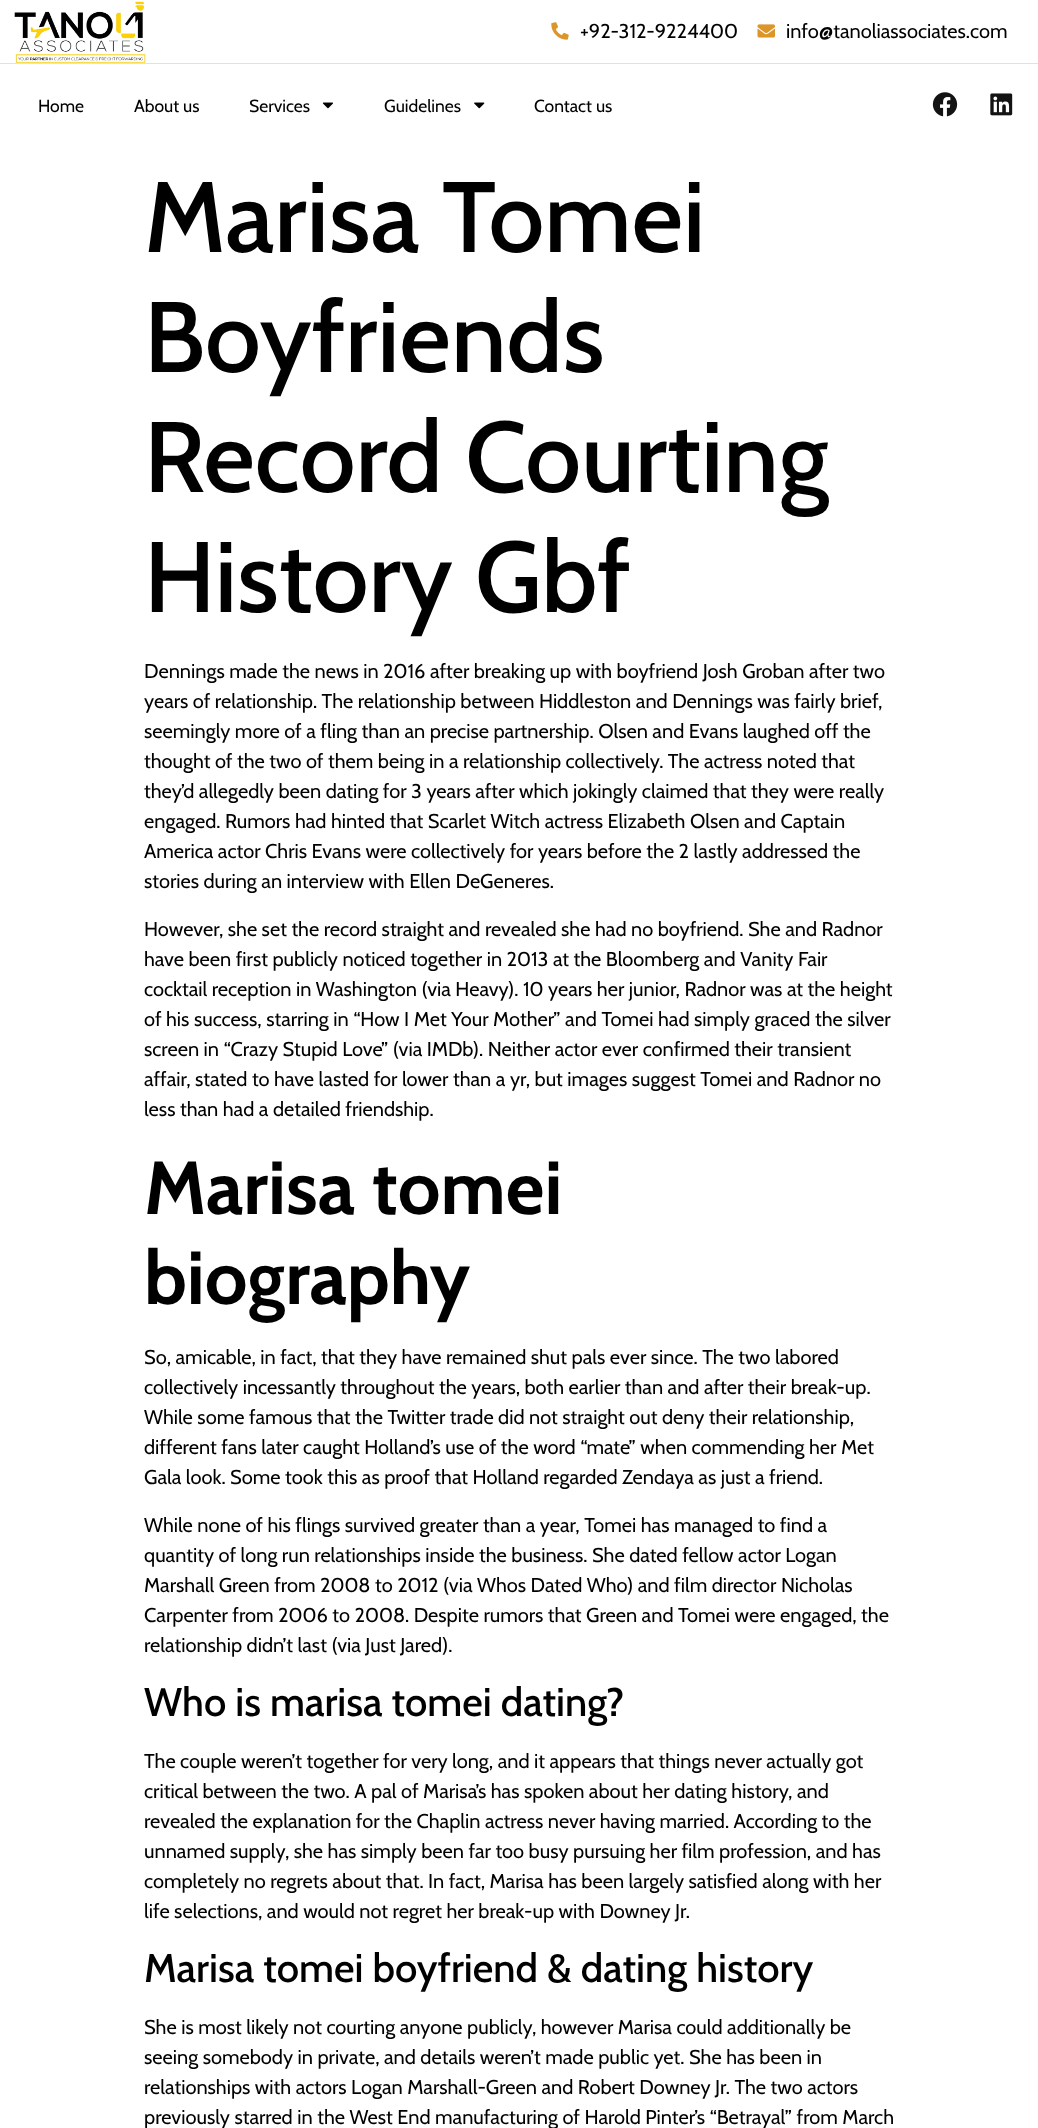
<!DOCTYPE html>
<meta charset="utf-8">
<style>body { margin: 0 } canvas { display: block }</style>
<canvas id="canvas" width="1038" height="2128"></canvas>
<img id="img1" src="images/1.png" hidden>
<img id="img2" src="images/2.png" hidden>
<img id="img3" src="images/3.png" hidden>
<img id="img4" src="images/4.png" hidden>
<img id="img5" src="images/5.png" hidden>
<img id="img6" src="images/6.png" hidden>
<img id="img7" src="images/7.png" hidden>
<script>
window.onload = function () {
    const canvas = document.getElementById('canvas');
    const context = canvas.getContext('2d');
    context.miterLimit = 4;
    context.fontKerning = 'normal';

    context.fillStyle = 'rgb(255, 255, 255)';
    context.fillRect(0, 0, 1038, 2128);
    context.fillStyle = 'rgb(225, 225, 225)';
    context.fillRect(0, 63, 1038, 1);
    context.drawImage(document.getElementById('img1'), 14, 1, 132, 63);
    context.drawImage(document.getElementById('img2'), 551, 22, 18, 18);
    context.drawImage(document.getElementById('img3'), 757, 24, 18, 14);
    context.drawImage(document.getElementById('img4'), 322, 102, 11, 7);
    context.drawImage(document.getElementById('img5'), 474, 102, 11, 7);
    context.drawImage(document.getElementById('img6'), 932, 92, 26, 25);
    context.drawImage(document.getElementById('img7'), 990, 93, 23, 23);
    context.font = '20px Cabin';
    context.fillStyle = 'rgb(0, 0, 0)';
    context.fillText('+92-312-9224400', 580, 38);
    context.fillText('info@tanoliassociates.com', 786, 38);
    context.font = '17.5px Cabin';
    context.fillText('Home', 38, 112);
    context.fillText('About us', 134, 112);
    context.fillText('Services', 249, 112);
    context.fillText('Guidelines', 384, 112);
    context.fillText('Contact us', 534, 112);
    context.font = '500 100px Cabin';
    context.fillText('Marisa Tomei', 144, 252);
    context.fillText('Boyfriends', 144, 372);
    context.fillText('Record Courting', 144, 492);
    context.fillText('History Gbf', 144, 612);
    context.font = '20px Cabin';
    context.fillText('Dennings made the news in 2016 after breaking up with boyfriend Josh Groban after two', 144, 678);
    context.fillText('years of relationship. The relationship between Hiddleston and Dennings was fairly brief,', 144, 708);
    context.fillText('seemingly more of a fling than an precise partnership. Olsen and Evans laughed off the', 144, 738);
    context.fillText('thought of the two of them being in a relationship collectively. The actress noted that', 144, 768);
    context.fillText('they’d allegedly been dating for 3 years after which jokingly claimed that they were really', 144, 798);
    context.fillText('engaged. Rumors had hinted that Scarlet Witch actress Elizabeth Olsen and Captain', 144, 828);
    context.fillText('America actor Chris Evans were collectively for years before the 2 lastly addressed the', 144, 858);
    context.fillText('stories during an interview with Ellen DeGeneres.', 144, 888);
    context.fillText('However, she set the record straight and revealed she had no boyfriend. She and Radnor', 144, 936);
    context.fillText('have been first publicly noticed together in 2013 at the Bloomberg and Vanity Fair', 144, 966);
    context.fillText('cocktail reception in Washington (via Heavy). 10 years her junior, Radnor was at the height', 144, 996);
    context.fillText('of his success, starring in “How I Met Your Mother” and Tomei had simply graced the silver', 144, 1026);
    context.fillText('screen in “Crazy Stupid Love” (via IMDb). Neither actor ever confirmed their transient', 144, 1056);
    context.fillText('affair, stated to have lasted for lower than a yr, but images suggest Tomei and Radnor no', 144, 1086);
    context.fillText('less than had a detailed friendship.', 144, 1116);
    context.font = 'bold 75px Cabin';
    context.fillText('Marisa tomei', 144, 1214);
    context.fillText('biography', 144, 1304);
    context.font = '20px Cabin';
    context.fillText('So, amicable, in fact, that they have remained shut pals ever since. The two labored', 144, 1364);
    context.fillText('collectively incessantly throughout the years, both earlier than and after their break-up.', 144, 1394);
    context.fillText('While some famous that the Twitter trade did not straight out deny their relationship,', 144, 1424);
    context.fillText('different fans later caught Holland’s use of the word “mate” when commending her Met', 144, 1454);
    context.fillText('Gala look. Some took this as proof that Holland regarded Zendaya as just a friend.', 144, 1484);
    context.fillText('While none of his flings survived greater than a year, Tomei has managed to find a', 144, 1532);
    context.fillText('quantity of long run relationships inside the business. She dated fellow actor Logan', 144, 1562);
    context.fillText('Marshall Green from 2008 to 2012 (via Whos Dated Who) and film director Nicholas', 144, 1592);
    context.fillText('Carpenter from 2006 to 2008. Despite rumors that Green and Tomei were engaged, the', 144, 1622);
    context.fillText('relationship didn’t last (via Just Jared).', 144, 1652);
    context.font = '500 40px Cabin';
    context.fillText('Who is marisa tomei dating?', 144, 1716);
    context.font = '20px Cabin';
    context.fillText('The couple weren’t together for very long, and it appears that things never actually got', 144, 1768);
    context.fillText('critical between the two. A pal of Marisa’s has spoken about her dating history, and', 144, 1798);
    context.fillText('revealed the explanation for the Chaplin actress never having married. According to the', 144, 1828);
    context.fillText('unnamed supply, she has simply been far too busy pursuing her film profession, and has', 144, 1858);
    context.fillText('completely no regrets about that. In fact, Marisa has been largely satisfied along with her', 144, 1888);
    context.fillText('life selections, and would not regret her break-up with Downey Jr.', 144, 1918);
    context.font = '500 40px Cabin';
    context.fillText('Marisa tomei boyfriend & dating history', 144, 1982);
    context.font = '20px Cabin';
    context.fillText('She is most likely not courting anyone publicly, however Marisa could additionally be', 144, 2034);
    context.fillText('seeing somebody in private, and details weren’t made public yet. She has been in', 144, 2064);
    context.fillText('relationships with actors Logan Marshall-Green and Robert Downey Jr. The two actors', 144, 2094);
    context.fillText('previously starred in the West End manufacturing of Harold Pinter’s “Betrayal” from March', 144, 2124);
};
</script>
